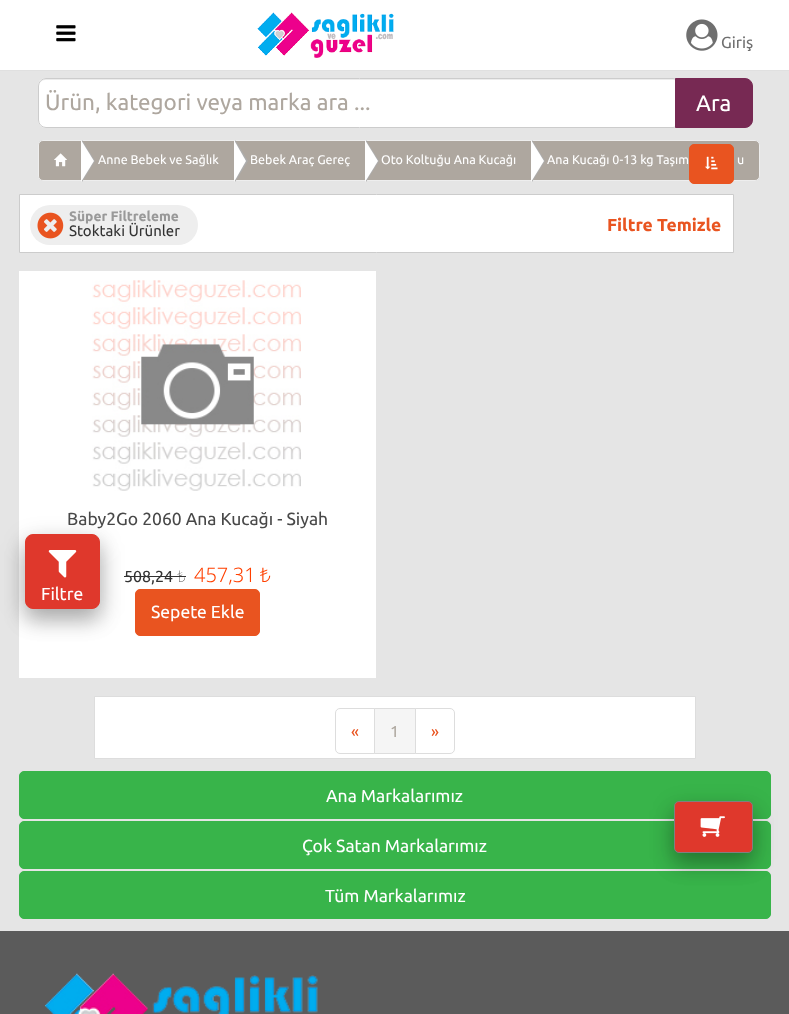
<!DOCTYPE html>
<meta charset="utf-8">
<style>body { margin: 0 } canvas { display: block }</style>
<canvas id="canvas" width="789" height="1014"></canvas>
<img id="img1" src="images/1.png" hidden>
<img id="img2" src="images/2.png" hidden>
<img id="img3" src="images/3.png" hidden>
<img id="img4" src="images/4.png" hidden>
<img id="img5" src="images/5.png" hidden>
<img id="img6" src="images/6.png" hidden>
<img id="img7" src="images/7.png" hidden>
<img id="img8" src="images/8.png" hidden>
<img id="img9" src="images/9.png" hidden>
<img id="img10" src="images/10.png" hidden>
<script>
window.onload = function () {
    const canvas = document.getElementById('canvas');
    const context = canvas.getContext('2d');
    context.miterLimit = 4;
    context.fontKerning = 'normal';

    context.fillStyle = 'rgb(229, 229, 229)';
    context.fillRect(0, 0, 789, 1014);
    context.fillStyle = 'rgb(255, 255, 255)';
    context.fillRect(0, 0, 789, 70);
    context.fillStyle = 'rgb(224, 224, 224)';
    context.fillRect(0, 70, 789, 1);
    context.drawImage(document.getElementById('img1'), 56, 25, 20, 17);
    context.drawImage(document.getElementById('img2'), 257, 12, 137, 46);
    context.drawImage(document.getElementById('img3'), 686, 19, 32, 32);
    context.fillStyle = 'rgb(255, 255, 255)';
    context.beginPath();
    context.roundRect(38, 78, 643, 50, 8);
    context.fill();
    context.fillStyle = 'rgb(236, 236, 236)';
    context.beginPath();
    context.moveTo(45, 80);
    context.lineTo(674, 80);
    context.bezierCurveTo(677, 80, 680, 83, 680, 86);
    context.bezierCurveTo(680, 82, 678, 79, 674, 79);
    context.lineTo(45, 79);
    context.bezierCurveTo(41, 79, 39, 82, 39, 86);
    context.bezierCurveTo(39, 83, 42, 80, 45, 80);
    context.closePath();
    context.fill();
    context.beginPath();
    context.roundRect(38.5, 78.5, 642, 49, 7.5);
    context.strokeStyle = 'rgb(204, 204, 204)';
    context.stroke();
    context.fillStyle = 'rgb(119, 41, 83)';
    context.beginPath();
    context.roundRect(675.5, 78.5, 77, 49, [0, 7.5, 7.5, 0]);
    context.fill();
    context.strokeStyle = 'rgb(119, 41, 83)';
    context.stroke();
    context.fillStyle = 'rgb(174, 167, 159)';
    context.beginPath();
    context.roundRect(38.5, 140.5, 44, 40, [4.5, 0, 0, 4.5]);
    context.fill();
    context.strokeStyle = 'rgb(238, 238, 238)';
    context.stroke();
    context.beginPath();
    context.rect(81.5, 140.5, 153, 40);
    context.fill();
    context.stroke();
    context.fillStyle = 'rgb(173, 173, 173)';
    context.beginPath();
    context.moveTo(82, 182);
    context.lineTo(82, 140);
    context.lineTo(95, 161);
    context.closePath();
    context.fill();
    context.fillStyle = 'rgb(255, 255, 255)';
    context.beginPath();
    context.moveTo(81, 182);
    context.lineTo(81, 140);
    context.lineTo(94, 161);
    context.closePath();
    context.fill();
    context.drawImage(document.getElementById('img4'), 54, 153, 13, 14);
    context.fillStyle = 'rgb(174, 167, 159)';
    context.beginPath();
    context.rect(234.5, 140.5, 131, 40);
    context.fill();
    context.stroke();
    context.fillStyle = 'rgb(173, 173, 173)';
    context.beginPath();
    context.moveTo(235, 182);
    context.lineTo(235, 140);
    context.lineTo(248, 161);
    context.closePath();
    context.fill();
    context.fillStyle = 'rgb(255, 255, 255)';
    context.beginPath();
    context.moveTo(234, 182);
    context.lineTo(234, 140);
    context.lineTo(246, 161);
    context.closePath();
    context.fill();
    context.fillStyle = 'rgb(174, 167, 159)';
    context.fillRect(366, 141, 165, 39);
    context.strokeRect(365.5, 140.5, 167, 40);
    context.fillStyle = 'rgb(173, 173, 173)';
    context.beginPath();
    context.moveTo(366, 182);
    context.lineTo(366, 140);
    context.lineTo(379, 161);
    context.closePath();
    context.fill();
    context.fillStyle = 'rgb(255, 255, 255)';
    context.beginPath();
    context.moveTo(365, 182);
    context.lineTo(365, 140);
    context.lineTo(378, 161);
    context.closePath();
    context.fill();
    context.fillStyle = 'rgb(174, 167, 159)';
    context.beginPath();
    context.roundRect(531.5, 140.5, 228, 40, [0, 4.5, 4.5, 0]);
    context.fill();
    context.stroke();
    context.fillStyle = 'rgb(173, 173, 173)';
    context.beginPath();
    context.moveTo(532, 182);
    context.lineTo(532, 140);
    context.lineTo(545, 161);
    context.closePath();
    context.fill();
    context.fillStyle = 'rgb(255, 255, 255)';
    context.beginPath();
    context.moveTo(531, 182);
    context.lineTo(531, 140);
    context.lineTo(544, 161);
    context.closePath();
    context.fill();
    context.fillRect(19, 271, 357, 407);
    context.fillStyle = 'rgb(51, 51, 51)';
    context.fillRect(124, 576, 62, 1);
    context.fillStyle = 'rgb(233, 84, 32)';
    context.beginPath();
    context.roundRect(135.5, 589.5, 124, 46, 4.5);
    context.fill();
    context.strokeStyle = 'rgb(233, 84, 32)';
    context.stroke();
    context.fillStyle = 'rgba(0, 0, 0, 0.19)';
    context.filter = 'blur(12.5px)';
    context.beginPath();
    context.roundRect(25, 541, 75, 75, 8);
    context.fill();
    context.filter = 'none';
    context.fillStyle = 'rgba(0, 0, 0, 0.2)';
    context.filter = 'blur(10px)';
    context.beginPath();
    context.roundRect(25, 546, 75, 75, 8);
    context.fill();
    context.filter = 'none';
    context.fillStyle = 'rgb(223, 56, 44)';
    context.beginPath();
    context.roundRect(25.5, 534.5, 74, 74, 7.5);
    context.fill();
    context.strokeStyle = 'rgb(223, 56, 44)';
    context.stroke();
    context.drawImage(document.getElementById('img5'), 48, 550, 29, 28);
    context.fillStyle = 'rgb(233, 84, 32)';
    context.beginPath();
    context.roundRect(689.5, 144.5, 44, 39, 4.5);
    context.fill();
    context.strokeStyle = 'rgb(233, 84, 32)';
    context.stroke();
    context.drawImage(document.getElementById('img6'), 705, 156, 13, 14);
    context.fillStyle = 'rgb(255, 255, 255)';
    context.beginPath();
    context.rect(19.5, 194.5, 714, 58);
    context.fill();
    context.strokeStyle = 'rgb(204, 204, 204)';
    context.stroke();
    context.fillStyle = 'rgb(238, 238, 238)';
    context.beginPath();
    context.roundRect(30, 205, 168, 40, 20);
    context.fill();
    context.drawImage(document.getElementById('img7'), 37, 212, 27, 27);
    context.drawImage(document.getElementById('img8'), 92, 280, 209, 211);
    context.fillStyle = 'rgb(255, 255, 255)';
    context.beginPath();
    context.rect(94.5, 696.5, 601, 62);
    context.fill();
    context.strokeStyle = 'rgb(221, 221, 221)';
    context.stroke();
    context.beginPath();
    context.roundRect(335.5, 708.5, 39, 45, [4.5, 0, 0, 4.5]);
    context.stroke();
    context.beginPath();
    context.roundRect(415.5, 708.5, 39, 45, [0, 4.5, 4.5, 0]);
    context.stroke();
    context.fillStyle = 'rgb(245, 245, 245)';
    context.beginPath();
    context.rect(374.5, 708.5, 41, 45);
    context.fill();
    context.stroke();
    context.fillStyle = 'rgb(56, 180, 74)';
    context.beginPath();
    context.roundRect(19.5, 771.5, 751, 47, 4.5);
    context.fill();
    context.strokeStyle = 'rgb(56, 180, 74)';
    context.stroke();
    context.beginPath();
    context.roundRect(19.5, 821.5, 751, 47, 4.5);
    context.fill();
    context.stroke();
    context.beginPath();
    context.roundRect(19.5, 871.5, 751, 47, 4.5);
    context.fill();
    context.stroke();
    context.fillStyle = 'rgba(0, 0, 0, 0.19)';
    context.filter = 'blur(12.5px)';
    context.beginPath();
    context.roundRect(674, 809, 79, 51, 5);
    context.fill();
    context.filter = 'none';
    context.fillStyle = 'rgba(0, 0, 0, 0.2)';
    context.filter = 'blur(10px)';
    context.beginPath();
    context.roundRect(674, 814, 79, 51, 5);
    context.fill();
    context.filter = 'none';
    context.fillStyle = 'rgb(223, 56, 44)';
    context.beginPath();
    context.roundRect(674.5, 801.5, 78, 51, 4.5);
    context.fill();
    context.strokeStyle = 'rgb(128, 128, 128)';
    context.stroke();
    context.drawImage(document.getElementById('img9'), 700, 816, 25, 21);
    context.fillStyle = 'rgb(91, 91, 91)';
    context.fillRect(0, 931, 789, 83);
    context.drawImage(document.getElementById('img10'), 45, 973, 273, 41);
    context.font = '16px Ubuntu';
    context.fillStyle = 'rgb(111, 111, 111)';
    context.fillText('Giriş', 721, 48);
    context.font = '22.5px Ubuntu';
    context.fillStyle = 'rgb(174, 167, 159)';
    context.fillText('Ürün, kategori veya marka ara ...', 45, 110);
    context.fillStyle = 'rgb(255, 255, 255)';
    context.fillText('Ara', 696, 111);
    context.font = '12.5px Ubuntu';
    context.fillText('Anne Bebek ve Sağlık', 98, 164);
    context.fillText('Bebek Araç Gereç', 250, 164);
    context.fillText('Oto Koltuğu Ana Kucağı', 381, 164);
    context.fillText('Ana Kucağı 0-13 kg Taşım', 547, 164);
    context.fillText('u', 737, 164);
    context.font = '17.5px Ubuntu';
    context.fillText('Filtre', 41, 600);
    context.font = 'bold 13.75px Ubuntu';
    context.fillStyle = 'rgb(153, 153, 153)';
    context.fillText('Süper Filtreleme', 69, 221);
    context.font = '15px Ubuntu';
    context.fillStyle = 'rgb(51, 51, 51)';
    context.fillText('Stoktaki Ürünler', 69, 236);
    context.font = 'bold 17.5px Ubuntu';
    context.fillStyle = 'rgb(233, 84, 32)';
    context.fillText('Filtre Temizle', 607, 231);
    context.font = '17.5px Ubuntu';
    context.fillStyle = 'rgb(72, 72, 72)';
    context.fillText('Baby2Go 2060 Ana Kucağı - Siyah', 67, 525);
    context.font = '16px Ubuntu';
    context.fillStyle = 'rgb(51, 51, 51)';
    context.fillText('508,24', 124, 582);
    context.font = '100 16px Noto Sans';
    context.fillText('₺', 177, 582);
    context.wordSpacing = '-1px';
    context.font = '300 20px Noto Sans';
    context.fillStyle = 'rgb(255, 64, 0)';
    context.fillText('457,31 ₺', 194, 582);
    context.wordSpacing = '0px';
    context.font = '17.5px Ubuntu';
    context.fillStyle = 'rgb(255, 255, 255)';
    context.fillText('Sepete Ekle', 151, 618);
    context.font = '16px Ubuntu';
    context.fillStyle = 'rgb(233, 84, 32)';
    context.fillText('«', 351, 737);
    context.fillStyle = 'rgb(174, 167, 159)';
    context.fillText('1', 390, 737);
    context.fillStyle = 'rgb(233, 84, 32)';
    context.fillText('»', 431, 737);
    context.font = '17.5px Ubuntu';
    context.fillStyle = 'rgb(255, 255, 255)';
    context.fillText('Ana Markalarımız', 326, 802);
    context.fillText('Çok Satan Markalarımız', 302, 852);
    context.fillText('Tüm Markalarımız', 325, 902);
};
</script>
